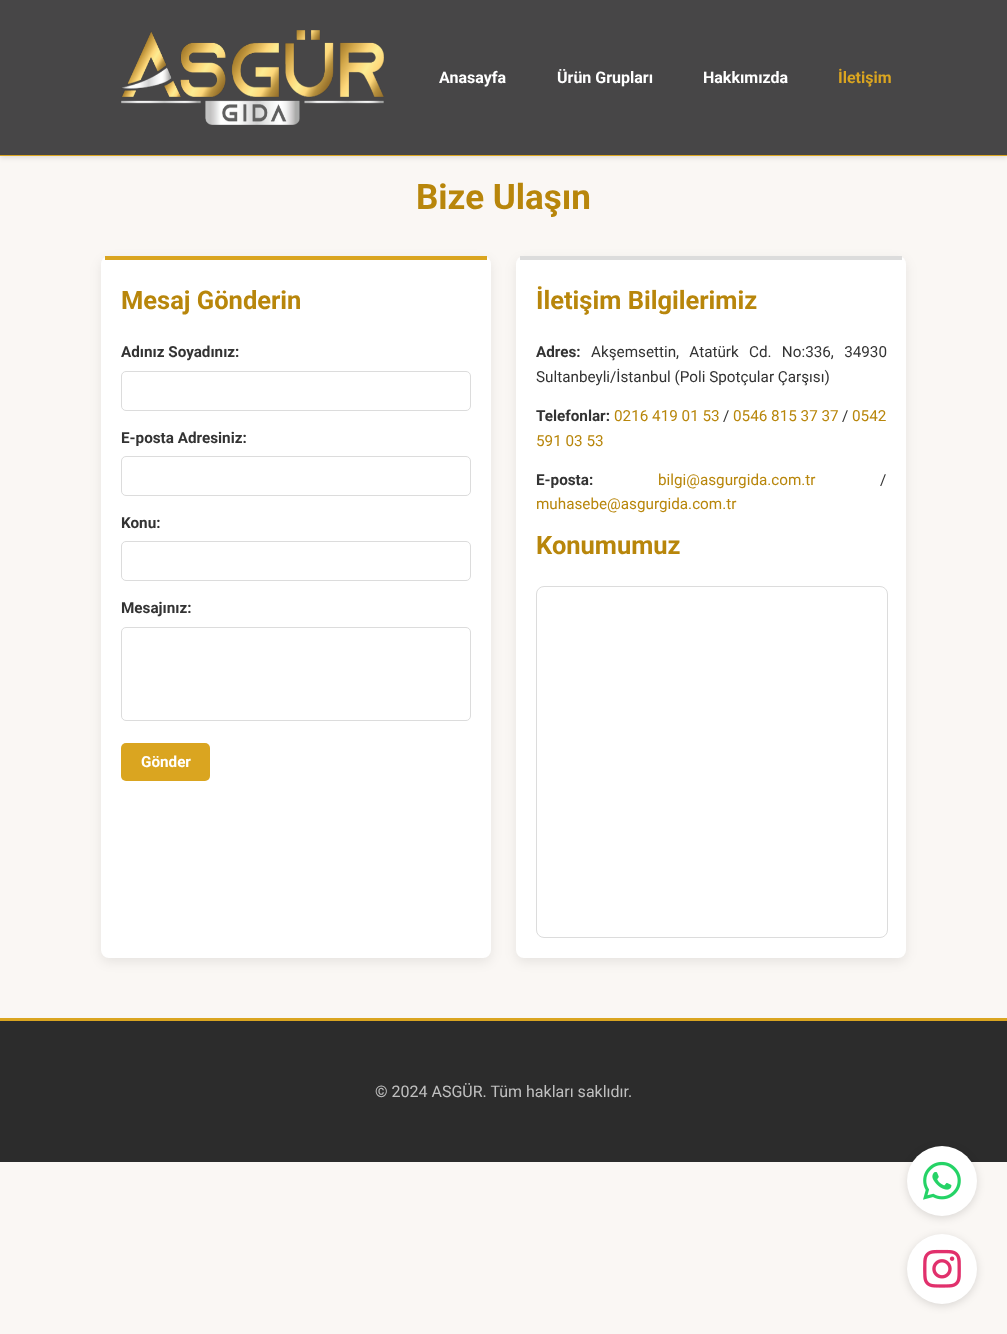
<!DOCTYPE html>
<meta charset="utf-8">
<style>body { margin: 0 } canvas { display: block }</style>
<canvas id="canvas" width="1007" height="1334"></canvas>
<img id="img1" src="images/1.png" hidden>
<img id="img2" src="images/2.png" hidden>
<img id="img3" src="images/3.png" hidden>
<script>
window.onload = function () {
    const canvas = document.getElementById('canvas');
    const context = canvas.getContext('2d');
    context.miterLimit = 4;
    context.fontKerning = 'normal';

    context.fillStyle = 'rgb(250, 247, 244)';
    context.fillRect(0, 0, 1007, 1334);
    context.fillStyle = 'rgba(0, 0, 0, 0.1)';
    context.filter = 'blur(2.5px)';
    context.beginPath();
    context.rect(0, 2, 1007, 156);
    context.fill();
    context.filter = 'none';
    context.fillStyle = 'rgb(71, 70, 71)';
    context.fillRect(0, 0, 1007, 155);
    context.fillStyle = 'rgb(218, 165, 32)';
    context.fillRect(0, 155, 1007, 1);
    context.drawImage(document.getElementById('img1'), 121, 30, 263, 95);
    context.fillStyle = 'rgba(0, 0, 0, 0.08)';
    context.filter = 'blur(6px)';
    context.beginPath();
    context.roundRect(101, 260, 390, 702, 8);
    context.fill();
    context.filter = 'none';
    context.fillStyle = 'rgb(255, 255, 255)';
    context.beginPath();
    context.roundRect(101, 256, 390, 702, 8);
    context.fill();
    context.fillStyle = 'rgb(218, 165, 32)';
    context.fillRect(105, 256, 382, 4);
    context.beginPath();
    context.roundRect(121.5, 371.5, 349, 39, 4.5);
    context.strokeStyle = 'rgb(220, 220, 220)';
    context.stroke();
    context.beginPath();
    context.roundRect(121.5, 456.5, 349, 39, 4.5);
    context.stroke();
    context.beginPath();
    context.roundRect(121.5, 541.5, 349, 39, 4.5);
    context.stroke();
    context.beginPath();
    context.roundRect(121.5, 627.5, 349, 93, 4.5);
    context.stroke();
    context.beginPath();
    context.roundRect(121, 743, 89, 38, 5);
    context.fill();
    context.fillStyle = 'rgba(0, 0, 0, 0.08)';
    context.filter = 'blur(6px)';
    context.beginPath();
    context.roundRect(516, 260, 390, 702, 8);
    context.fill();
    context.filter = 'none';
    context.fillStyle = 'rgb(255, 255, 255)';
    context.beginPath();
    context.roundRect(516, 256, 390, 702, 8);
    context.fill();
    context.fillStyle = 'rgb(220, 220, 220)';
    context.fillRect(520, 256, 382, 4);
    context.beginPath();
    context.roundRect(536.5, 586.5, 351, 351, 7.5);
    context.stroke();
    context.fillStyle = 'rgb(44, 44, 44)';
    context.fillRect(0, 1021, 1007, 141);
    context.fillStyle = 'rgb(218, 165, 32)';
    context.fillRect(0, 1018, 1007, 3);
    context.fillStyle = 'rgba(0, 0, 0, 0.13)';
    context.filter = 'blur(4px)';
    context.beginPath();
    context.roundRect(907, 1148, 70, 70, 35);
    context.fill();
    context.filter = 'none';
    context.fillStyle = 'rgb(255, 255, 255)';
    context.beginPath();
    context.arc(942, 1181, 35, 0, 2 * Math.PI);
    context.fill();
    context.drawImage(document.getElementById('img2'), 923, 1161, 38, 39);
    context.fillStyle = 'rgba(0, 0, 0, 0.13)';
    context.filter = 'blur(4px)';
    context.beginPath();
    context.roundRect(907, 1236, 70, 70, 35);
    context.fill();
    context.filter = 'none';
    context.fillStyle = 'rgb(255, 255, 255)';
    context.beginPath();
    context.arc(942, 1269, 35, 0, 2 * Math.PI);
    context.fill();
    context.drawImage(document.getElementById('img3'), 923, 1249, 38, 39);
    context.font = 'bold 16px Roboto';
    context.fillText('Anasayfa', 439, 83);
    context.fillText('Ürün Grupları', 557, 83);
    context.fillText('Hakkımızda', 703, 83);
    context.fillStyle = 'rgb(218, 165, 32)';
    context.fillText('İletişim', 838, 83);
    context.font = 'bold 35px Roboto';
    context.fillStyle = 'rgb(184, 134, 11)';
    context.fillText('Bize Ulaşın', 416, 209);
    context.font = 'bold 25.5px Roboto';
    context.fillText('Mesaj Gönderin', 121, 309);
    context.font = 'bold 15.25px Roboto';
    context.fillStyle = 'rgb(51, 51, 51)';
    context.fillText('Adınız Soyadınız:', 121, 357);
    context.fillText('E-posta Adresiniz:', 121, 443);
    context.fillText('Konu:', 121, 528);
    context.fillText('Mesajınız:', 121, 613);
    context.fillStyle = 'rgb(255, 255, 255)';
    context.fillText('Gönder', 141, 767);
    context.font = 'bold 25.5px Roboto';
    context.fillStyle = 'rgb(184, 134, 11)';
    context.fillText('İletişim Bilgilerimiz', 536, 309);
    context.font = 'bold 15.25px Roboto';
    context.fillStyle = 'rgb(51, 51, 51)';
    context.fillText('Adres:', 536, 357);
    context.wordSpacing = '6.5px';
    context.font = '15.25px Roboto';
    context.fillText('Akşemsettin, Atatürk Cd. No:336, 34930', 591, 357);
    context.wordSpacing = '0px';
    context.fillText('Sultanbeyli/İstanbul (Poli Spotçular Çarşısı)', 536, 382);
    context.font = 'bold 15.25px Roboto';
    context.fillText('Telefonlar:', 536, 421);
    context.font = '15.25px Roboto';
    context.fillStyle = 'rgb(184, 134, 11)';
    context.fillText('0216 419 01 53', 614, 421);
    context.fillStyle = 'rgb(51, 51, 51)';
    context.fillText('/', 723, 421);
    context.fillStyle = 'rgb(184, 134, 11)';
    context.fillText('0546 815 37 37', 733, 421);
    context.fillStyle = 'rgb(51, 51, 51)';
    context.fillText('/', 842, 421);
    context.fillStyle = 'rgb(184, 134, 11)';
    context.fillText('0542', 852, 421);
    context.fillText('591 03 53', 536, 446);
    context.font = 'bold 15.25px Roboto';
    context.fillStyle = 'rgb(51, 51, 51)';
    context.fillText('E-posta:', 536, 485);
    context.font = '15.25px Roboto';
    context.fillStyle = 'rgb(184, 134, 11)';
    context.fillText('bilgi@asgurgida.com.tr', 658, 485);
    context.fillStyle = 'rgb(51, 51, 51)';
    context.fillText('/', 880, 485);
    context.fillStyle = 'rgb(184, 134, 11)';
    context.fillText('muhasebe@asgurgida.com.tr', 536, 509);
    context.font = 'bold 25.5px Roboto';
    context.fillText('Konumumuz', 536, 554);
    context.font = '16px Roboto';
    context.fillStyle = 'rgb(192, 192, 192)';
    context.fillText('© 2024 ASGÜR. Tüm hakları saklıdır.', 375, 1097);
};
</script>
